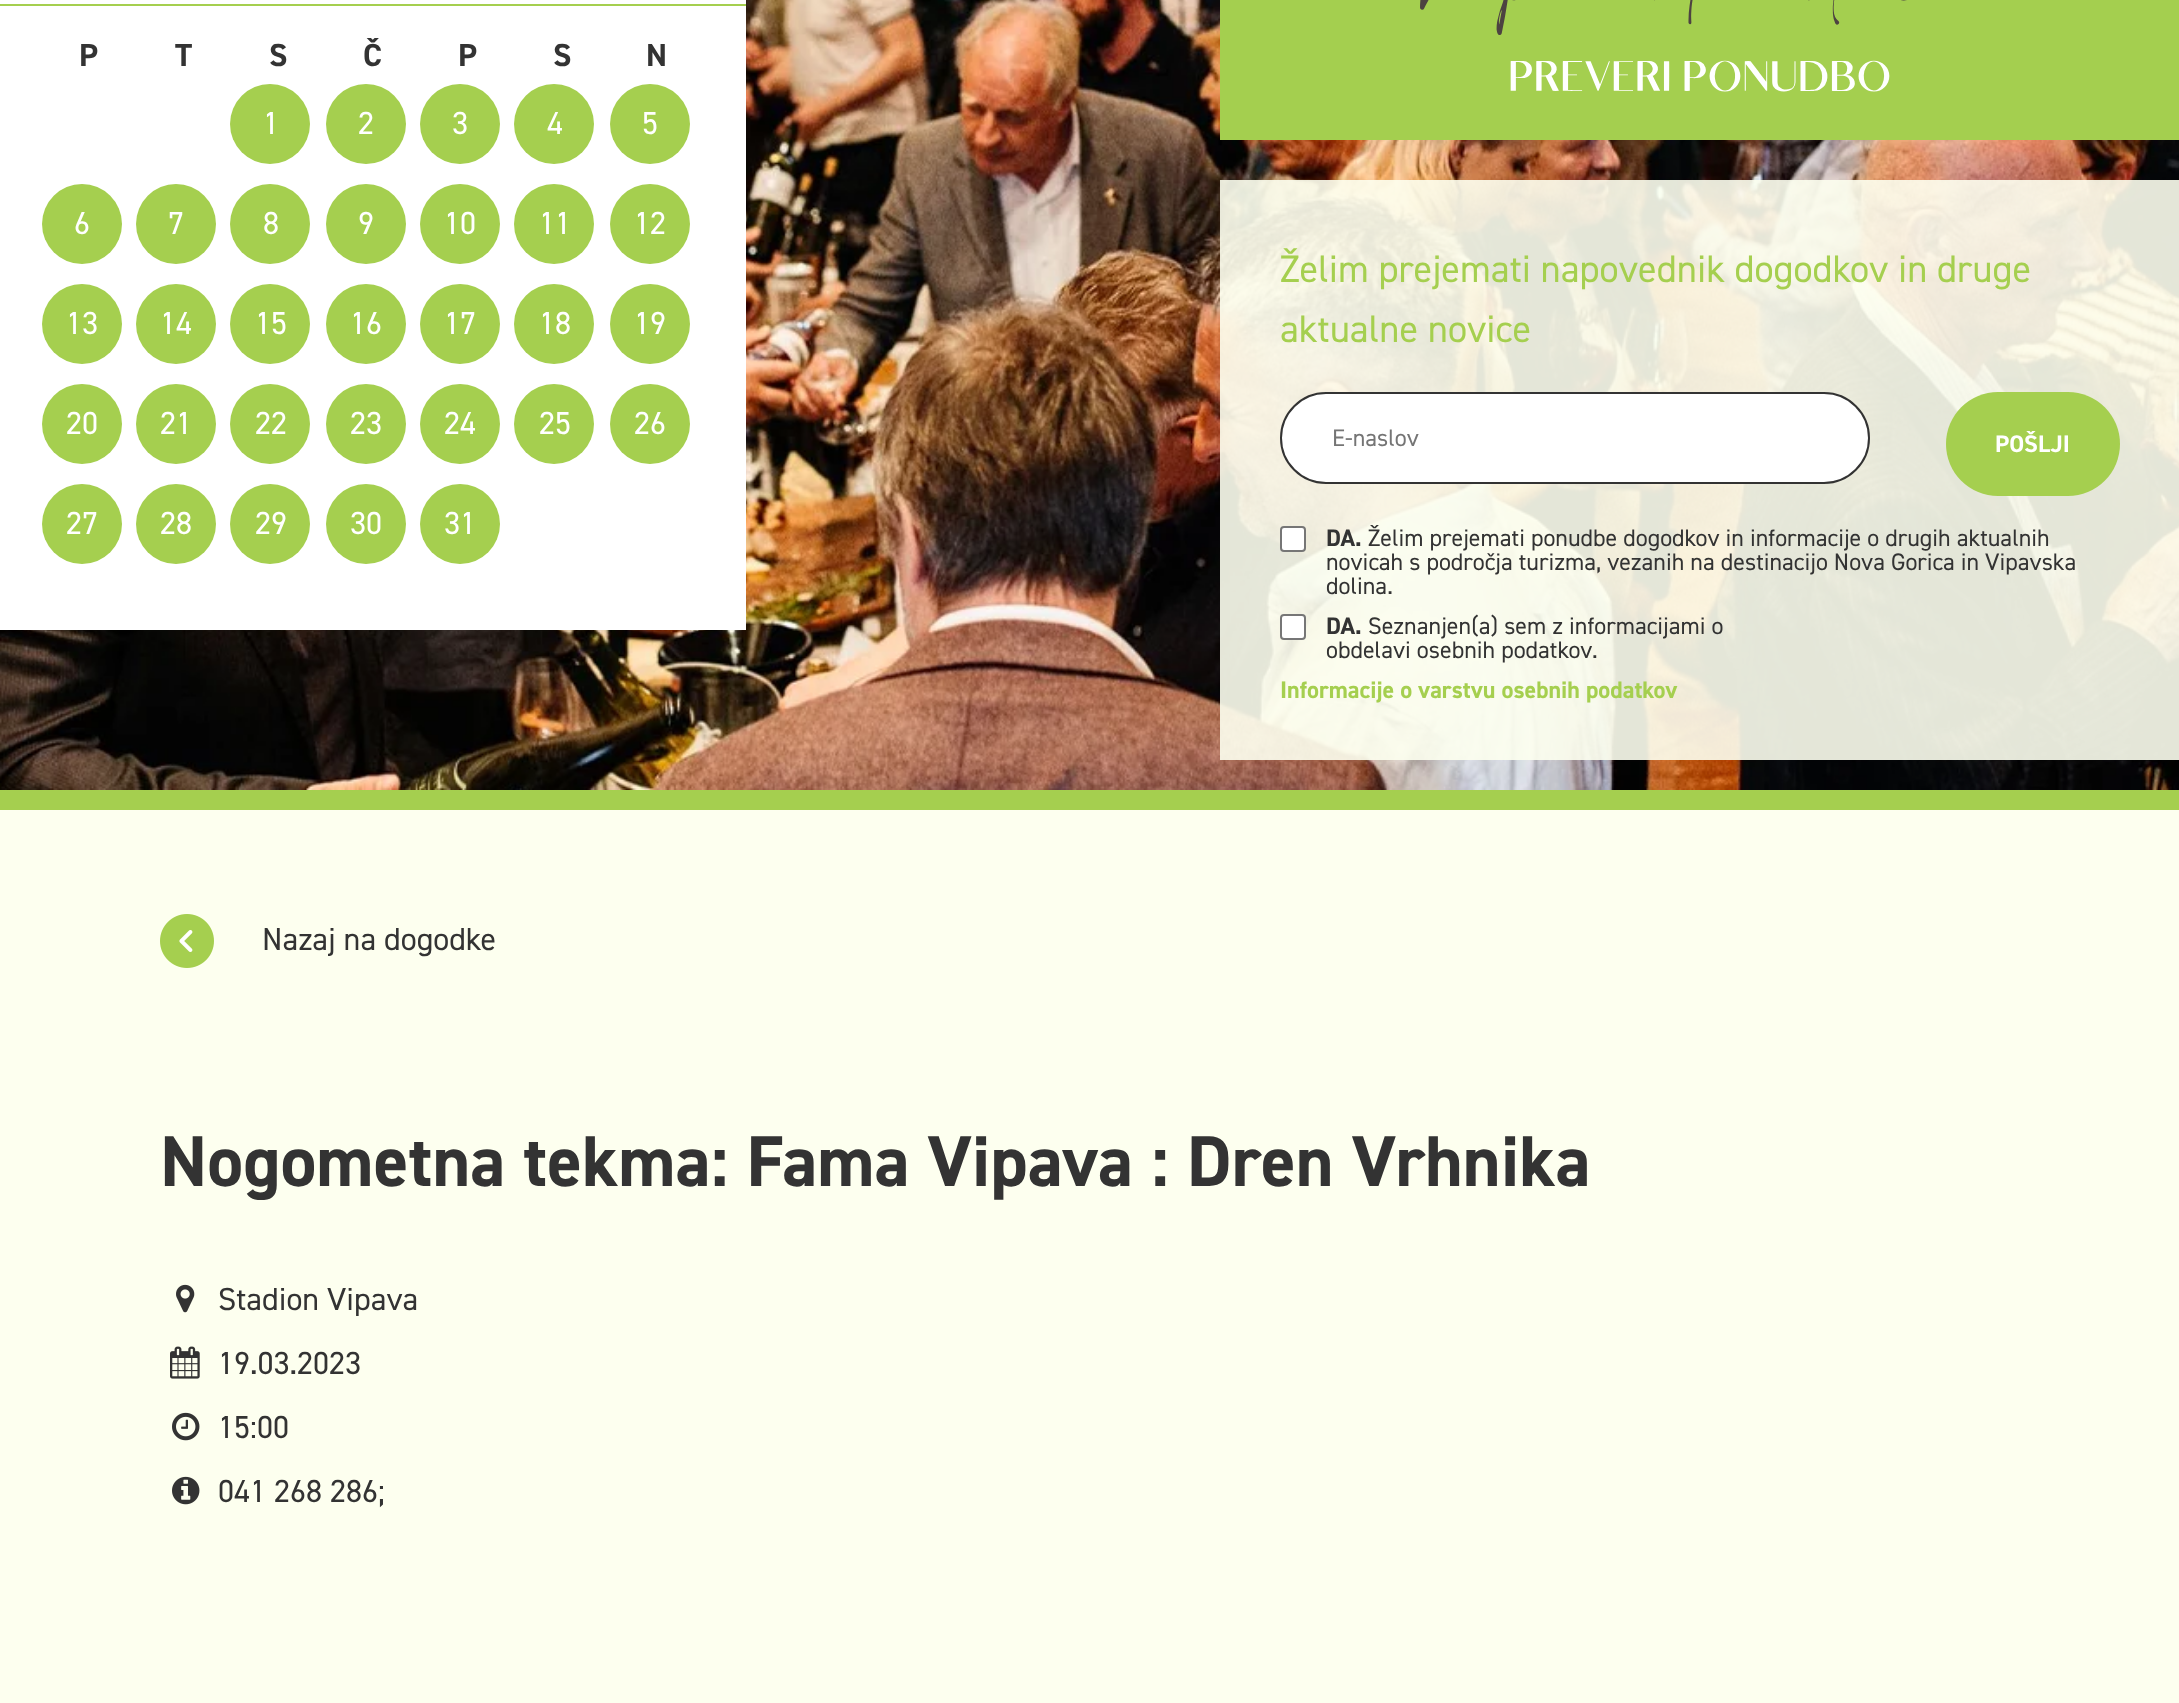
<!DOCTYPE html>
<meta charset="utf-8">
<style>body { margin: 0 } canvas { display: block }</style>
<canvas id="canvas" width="2179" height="1703"></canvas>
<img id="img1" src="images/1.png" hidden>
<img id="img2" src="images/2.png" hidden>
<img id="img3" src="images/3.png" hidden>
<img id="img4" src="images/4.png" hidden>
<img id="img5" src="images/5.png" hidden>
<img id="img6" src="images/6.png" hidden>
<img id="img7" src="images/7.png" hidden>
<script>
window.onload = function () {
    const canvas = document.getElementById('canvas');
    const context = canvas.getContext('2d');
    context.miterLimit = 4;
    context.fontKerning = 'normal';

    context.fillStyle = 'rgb(253, 255, 239)';
    context.fillRect(0, 0, 2179, 1703);
    context.drawImage(document.getElementById('img1'), 0, 0, 2179, 790);
    context.fillStyle = 'rgb(165, 207, 79)';
    context.fillRect(0, 790, 2179, 20);
    context.fillStyle = 'rgb(255, 255, 255)';
    context.fillRect(0, 0, 746, 630);
    context.fillStyle = 'rgb(165, 207, 79)';
    context.fillRect(0, 4, 746, 2);
    context.beginPath();
    context.arc(270, 124, 40, 0, 2 * Math.PI);
    context.fill();
    context.beginPath();
    context.arc(366, 124, 40, 0, 2 * Math.PI);
    context.fill();
    context.beginPath();
    context.arc(460, 124, 40, 0, 2 * Math.PI);
    context.fill();
    context.beginPath();
    context.arc(554, 124, 40, 0, 2 * Math.PI);
    context.fill();
    context.beginPath();
    context.arc(650, 124, 40, 0, 2 * Math.PI);
    context.fill();
    context.beginPath();
    context.arc(82, 224, 40, 0, 2 * Math.PI);
    context.fill();
    context.beginPath();
    context.arc(176, 224, 40, 0, 2 * Math.PI);
    context.fill();
    context.beginPath();
    context.arc(270, 224, 40, 0, 2 * Math.PI);
    context.fill();
    context.beginPath();
    context.arc(366, 224, 40, 0, 2 * Math.PI);
    context.fill();
    context.beginPath();
    context.arc(460, 224, 40, 0, 2 * Math.PI);
    context.fill();
    context.beginPath();
    context.arc(554, 224, 40, 0, 2 * Math.PI);
    context.fill();
    context.beginPath();
    context.arc(650, 224, 40, 0, 2 * Math.PI);
    context.fill();
    context.beginPath();
    context.arc(82, 324, 40, 0, 2 * Math.PI);
    context.fill();
    context.beginPath();
    context.arc(176, 324, 40, 0, 2 * Math.PI);
    context.fill();
    context.beginPath();
    context.arc(270, 324, 40, 0, 2 * Math.PI);
    context.fill();
    context.beginPath();
    context.arc(366, 324, 40, 0, 2 * Math.PI);
    context.fill();
    context.beginPath();
    context.arc(460, 324, 40, 0, 2 * Math.PI);
    context.fill();
    context.beginPath();
    context.arc(554, 324, 40, 0, 2 * Math.PI);
    context.fill();
    context.beginPath();
    context.arc(650, 324, 40, 0, 2 * Math.PI);
    context.fill();
    context.beginPath();
    context.arc(82, 424, 40, 0, 2 * Math.PI);
    context.fill();
    context.beginPath();
    context.arc(176, 424, 40, 0, 2 * Math.PI);
    context.fill();
    context.beginPath();
    context.arc(270, 424, 40, 0, 2 * Math.PI);
    context.fill();
    context.beginPath();
    context.arc(366, 424, 40, 0, 2 * Math.PI);
    context.fill();
    context.beginPath();
    context.arc(460, 424, 40, 0, 2 * Math.PI);
    context.fill();
    context.beginPath();
    context.arc(554, 424, 40, 0, 2 * Math.PI);
    context.fill();
    context.beginPath();
    context.arc(650, 424, 40, 0, 2 * Math.PI);
    context.fill();
    context.beginPath();
    context.arc(82, 524, 40, 0, 2 * Math.PI);
    context.fill();
    context.beginPath();
    context.arc(176, 524, 40, 0, 2 * Math.PI);
    context.fill();
    context.beginPath();
    context.arc(270, 524, 40, 0, 2 * Math.PI);
    context.fill();
    context.beginPath();
    context.arc(366, 524, 40, 0, 2 * Math.PI);
    context.fill();
    context.beginPath();
    context.arc(460, 524, 40, 0, 2 * Math.PI);
    context.fill();
    context.drawImage(document.getElementById('img2'), 1220, 0, 959, 140);
    context.fillStyle = 'rgba(253, 255, 239, 0.9)';
    context.fillRect(1220, 180, 959, 580);
    context.fillStyle = 'rgb(255, 255, 255)';
    context.beginPath();
    context.roundRect(1281, 393, 588, 90, 45);
    context.fill();
    context.strokeStyle = 'rgb(51, 51, 51)';
    context.lineWidth = 2;
    context.stroke();
    context.fillStyle = 'rgb(165, 207, 79)';
    context.beginPath();
    context.roundRect(1946, 392, 174, 104, 52);
    context.fill();
    context.fillStyle = 'rgb(255, 255, 255)';
    context.beginPath();
    context.roundRect(1281, 527, 24, 24, 3);
    context.fill();
    context.strokeStyle = 'rgb(118, 118, 118)';
    context.stroke();
    context.beginPath();
    context.roundRect(1281, 615, 24, 24, 3);
    context.fill();
    context.stroke();
    context.drawImage(document.getElementById('img3'), 160, 914, 54, 54);
    context.drawImage(document.getElementById('img4'), 176, 1284, 19, 29);
    context.drawImage(document.getElementById('img5'), 170, 1346, 30, 33);
    context.drawImage(document.getElementById('img6'), 172, 1412, 28, 29);
    context.drawImage(document.getElementById('img7'), 172, 1476, 28, 29);
    context.font = 'bold 32px "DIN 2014"';
    context.fillStyle = 'rgb(51, 51, 51)';
    context.fillText('P', 79, 66);
    context.fillText('T', 175, 66);
    context.fillText('S', 269, 66);
    context.fillText('Č', 363, 66);
    context.fillText('P', 458, 66);
    context.fillText('S', 553, 66);
    context.fillText('N', 646, 66);
    context.font = '32px "DIN 2014"';
    context.fillStyle = 'rgb(255, 255, 255)';
    context.fillText('1', 263, 134);
    context.fillText('2', 358, 134);
    context.fillText('3', 452, 134);
    context.fillText('4', 547, 134);
    context.fillText('5', 642, 134);
    context.fillText('6', 74, 234);
    context.fillText('7', 168, 234);
    context.fillText('8', 263, 234);
    context.fillText('9', 358, 234);
    context.fillText('10', 444, 234);
    context.fillText('11', 539, 234);
    context.fillText('12', 634, 234);
    context.fillText('13', 66, 334);
    context.fillText('14', 160, 334);
    context.fillText('15', 255, 334);
    context.fillText('16', 350, 334);
    context.fillText('17', 444, 334);
    context.fillText('18', 539, 334);
    context.fillText('19', 634, 334);
    context.fillText('20', 66, 434);
    context.fillText('21', 160, 434);
    context.fillText('22', 255, 434);
    context.fillText('23', 350, 434);
    context.fillText('24', 444, 434);
    context.fillText('25', 539, 434);
    context.fillText('26', 634, 434);
    context.fillText('27', 66, 534);
    context.fillText('28', 160, 534);
    context.fillText('29', 255, 534);
    context.fillText('30', 350, 534);
    context.fillText('31', 444, 534);
    context.font = '38.4px "DIN 2014"';
    context.fillStyle = 'rgb(165, 207, 79)';
    context.fillText('Želim prejemati napovednik dogodkov in druge', 1280, 282);
    context.fillText('aktualne novice', 1280, 342);
    context.font = '24px "DIN 2014"';
    context.fillStyle = 'rgb(117, 117, 117)';
    context.fillText('E-naslov', 1332, 446);
    context.font = 'bold 24px "DIN 2014"';
    context.fillStyle = 'rgb(255, 255, 255)';
    context.fillText('POŠLJI', 1995, 452);
    context.fillStyle = 'rgb(51, 51, 51)';
    context.fillText('DA.', 1326, 546);
    context.font = '24px "DIN 2014"';
    context.fillText('Želim prejemati ponudbe dogodkov in informacije o drugih aktualnih', 1368, 546);
    context.fillText('novicah s področja turizma, vezanih na destinacijo Nova Gorica in Vipavska', 1326, 570);
    context.fillText('dolina.', 1326, 594);
    context.font = 'bold 24px "DIN 2014"';
    context.fillText('DA.', 1326, 634);
    context.font = '24px "DIN 2014"';
    context.fillText('Seznanjen(a) sem z informacijami o', 1368, 634);
    context.fillText('obdelavi osebnih podatkov.', 1326, 658);
    context.font = 'bold 24px "DIN 2014"';
    context.fillStyle = 'rgb(165, 207, 79)';
    context.fillText('Informacije o varstvu osebnih podatkov', 1280, 698);
    context.font = '32px "DIN 2014"';
    context.fillStyle = 'rgb(51, 51, 51)';
    context.fillText('Nazaj na dogodke', 262, 950);
    context.font = 'bold 72px "DIN 2014"';
    context.fillText('Nogometna tekma: Fama Vipava : Dren Vrhnika', 160, 1186);
    context.font = '32px "DIN 2014"';
    context.fillText('Stadion Vipava', 218, 1310);
    context.fillText('19.03.2023', 218, 1374);
    context.fillText('15:00', 218, 1438);
    context.fillText('041 268 286;', 218, 1502);
};
</script>
